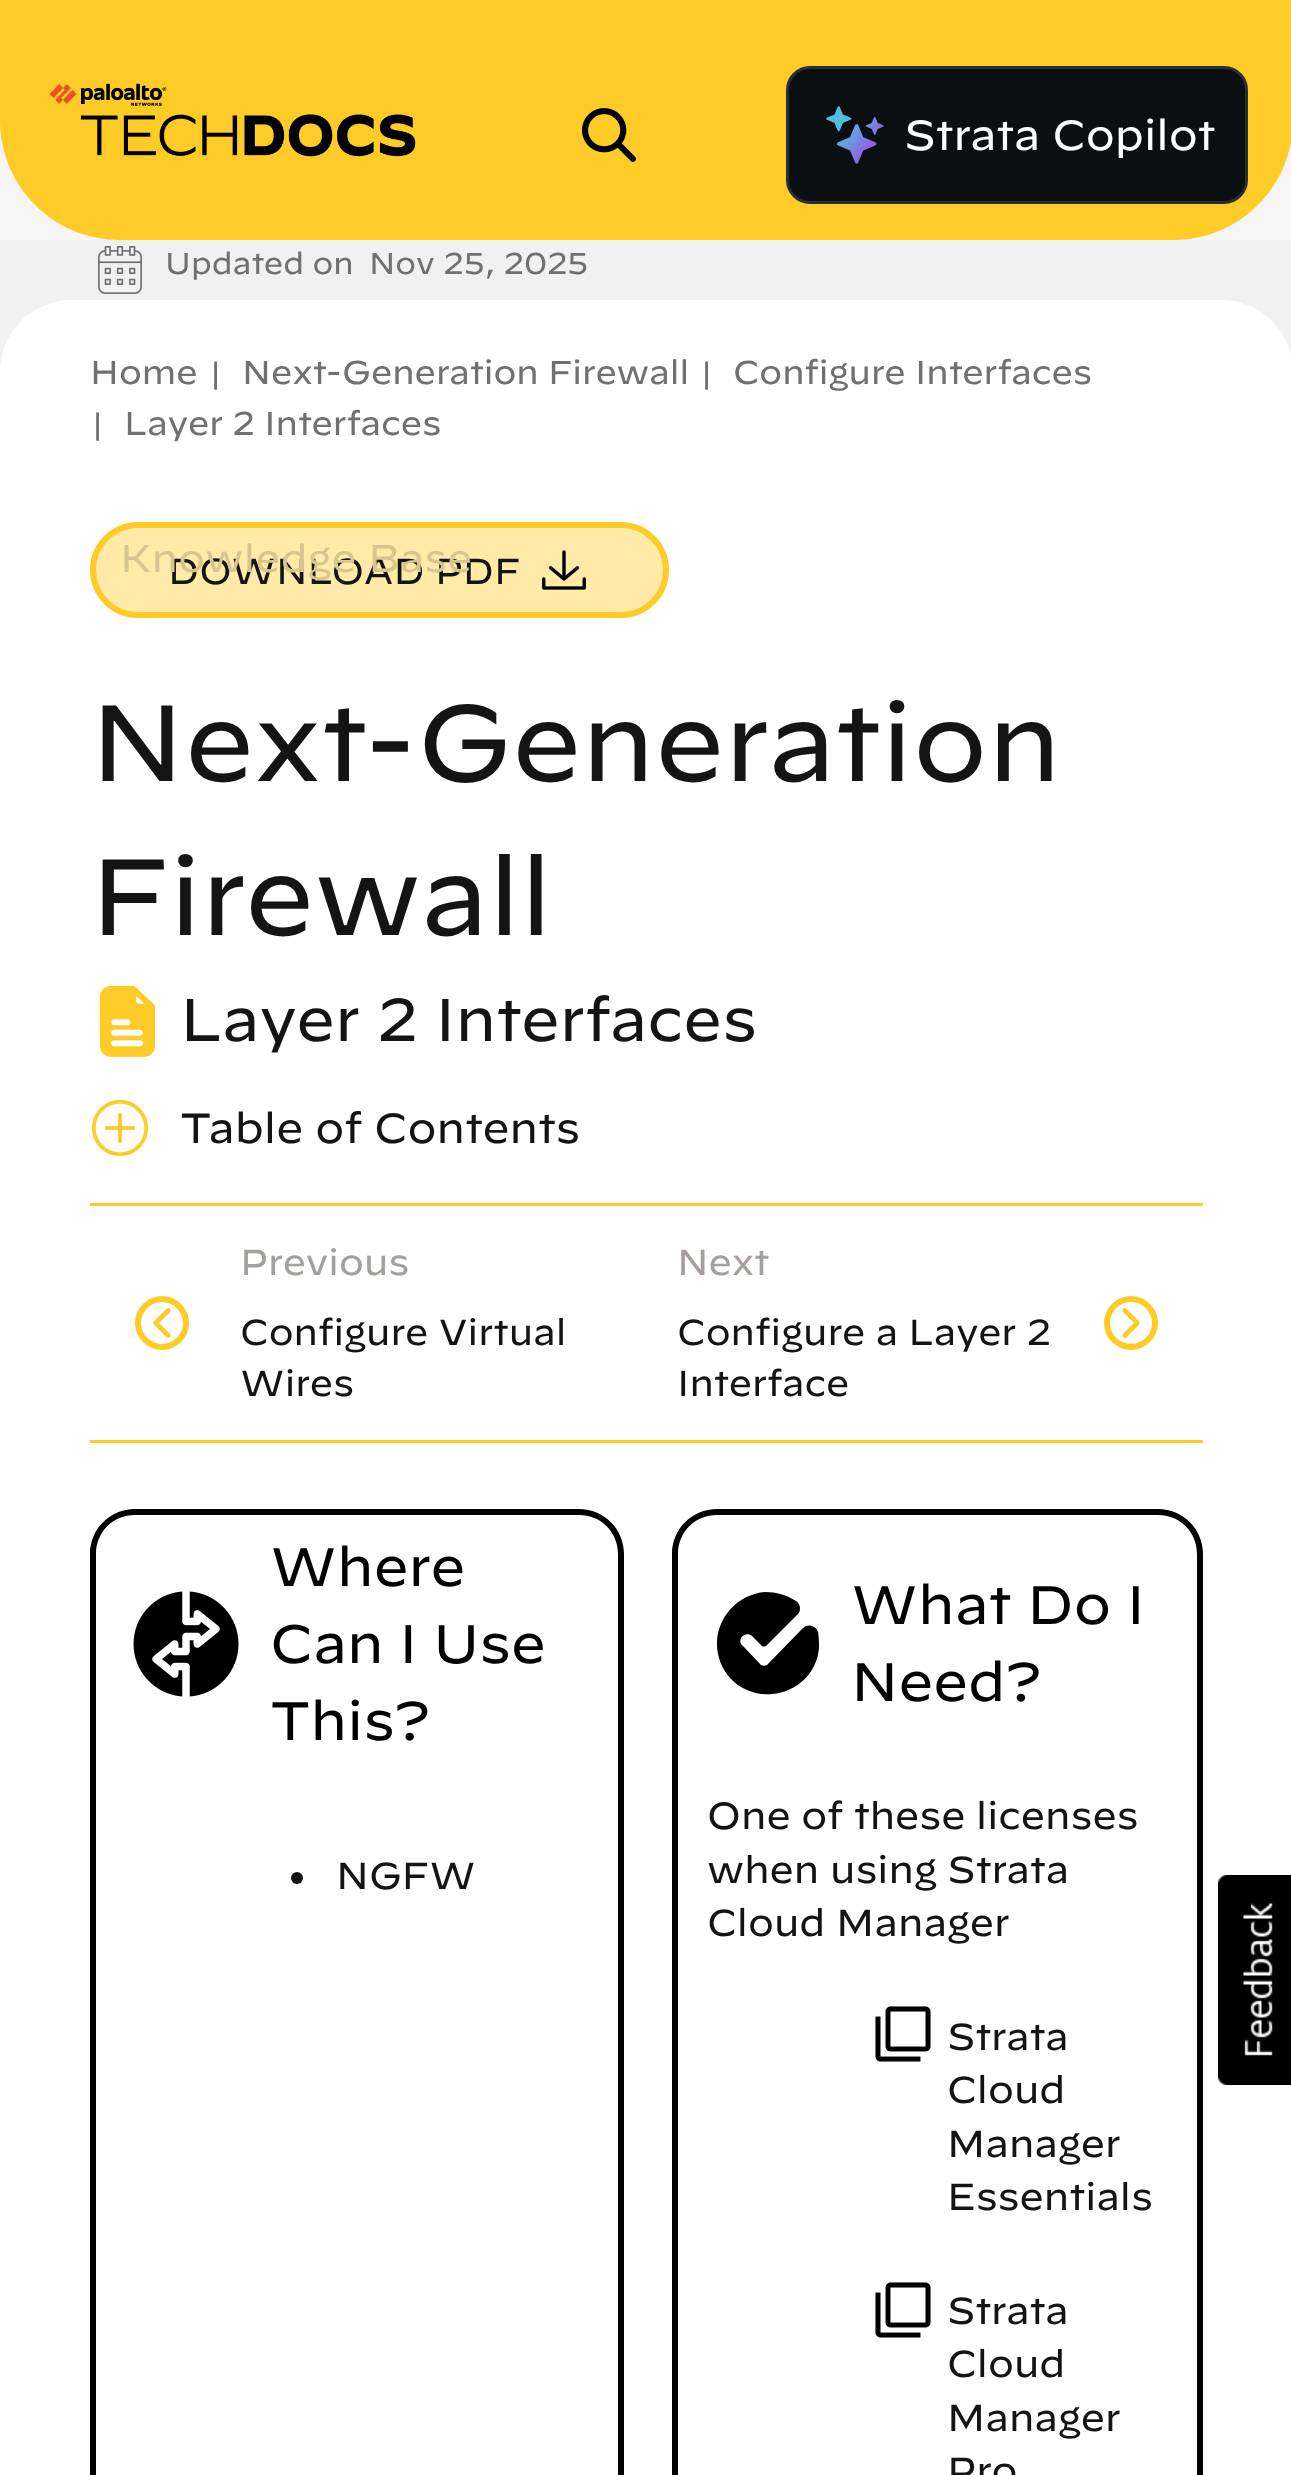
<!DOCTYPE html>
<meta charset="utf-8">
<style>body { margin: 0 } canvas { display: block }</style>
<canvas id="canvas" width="1291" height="2475"></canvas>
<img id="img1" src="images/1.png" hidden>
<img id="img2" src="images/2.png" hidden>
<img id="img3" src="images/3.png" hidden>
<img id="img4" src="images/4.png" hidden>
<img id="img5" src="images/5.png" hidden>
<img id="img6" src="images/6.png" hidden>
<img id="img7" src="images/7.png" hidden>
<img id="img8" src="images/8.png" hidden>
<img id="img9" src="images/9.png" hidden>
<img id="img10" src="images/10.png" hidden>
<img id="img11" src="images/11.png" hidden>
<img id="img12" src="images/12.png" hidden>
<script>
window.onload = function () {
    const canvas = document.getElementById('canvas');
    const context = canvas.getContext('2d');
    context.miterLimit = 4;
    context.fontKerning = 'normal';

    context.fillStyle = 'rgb(245, 245, 245)';
    context.fillRect(0, 0, 1291, 2475);
    context.fillStyle = 'rgb(255, 203, 38)';
    context.beginPath();
    context.moveTo(0, 0);
    context.lineTo(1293, 0);
    context.lineTo(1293, 120);
    context.bezierCurveTo(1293, 186.5, 1239.5, 240, 1173, 240);
    context.lineTo(120, 240);
    context.bezierCurveTo(53.5, 240, 0, 186.5, 0, 120);
    context.closePath();
    context.fill();
    context.drawImage(document.getElementById('img1'), 582, 108, 54, 54);
    context.fillStyle = 'rgb(11, 15, 18)';
    context.beginPath();
    context.roundRect(787.5, 67.5, 459, 135, 22.5);
    context.fill();
    context.strokeStyle = 'rgb(38, 47, 54)';
    context.lineWidth = 3;
    context.stroke();
    context.drawImage(document.getElementById('img2'), 826, 106, 58, 58);
    context.drawImage(document.getElementById('img3'), 49, 83, 367, 74);
    context.fillStyle = 'rgb(241, 241, 241)';
    context.fillRect(0, 240, 1291, 132);
    context.drawImage(document.getElementById('img4'), 98, 246, 44, 48);
    context.fillStyle = 'rgb(255, 255, 255)';
    context.beginPath();
    context.moveTo(72, 300);
    context.lineTo(1221, 300);
    context.bezierCurveTo(1261, 300, 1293, 332, 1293, 372);
    context.lineTo(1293, 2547);
    context.lineTo(0, 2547);
    context.lineTo(0, 372);
    context.bezierCurveTo(0, 332, 32, 300, 72, 300);
    context.closePath();
    context.fill();
    context.fillStyle = 'rgb(255, 234, 168)';
    context.beginPath();
    context.roundRect(93, 525, 573, 90, 45);
    context.fill();
    context.strokeStyle = 'rgb(255, 203, 38)';
    context.lineWidth = 6;
    context.stroke();
    context.drawImage(document.getElementById('img5'), 542, 550, 44, 40);
    context.drawImage(document.getElementById('img6'), 99, 985, 57, 72);
    context.drawImage(document.getElementById('img7'), 91, 1099, 58, 58);
    context.fillStyle = 'rgb(255, 203, 38)';
    context.fillRect(90, 1203, 1113, 3);
    context.beginPath();
    context.arc(162, 1323, 24, 0, 2 * Math.PI);
    context.stroke();
    context.drawImage(document.getElementById('img8'), 153, 1308, 18, 30);
    context.beginPath();
    context.arc(1131, 1323, 24, 0, 2 * Math.PI);
    context.stroke();
    context.drawImage(document.getElementById('img9'), 1122, 1308, 18, 30);
    context.fillRect(90, 1440, 1113, 3);
    context.fillStyle = 'rgb(0, 0, 0)';
    context.beginPath();
    context.moveTo(135, 1509);
    context.lineTo(579, 1509);
    context.bezierCurveTo(604, 1509, 624, 1529, 624, 1554);
    context.lineTo(624, 1776);
    context.lineTo(90, 1776);
    context.lineTo(90, 1554);
    context.bezierCurveTo(90, 1529, 110, 1509, 135, 1509);
    context.closePath();
    context.moveTo(135, 1515);
    context.lineTo(579, 1515);
    context.bezierCurveTo(601, 1515, 618, 1532, 618, 1554);
    context.lineTo(618, 1776);
    context.lineTo(96, 1776);
    context.lineTo(96, 1554);
    context.bezierCurveTo(96, 1532, 113, 1515, 135, 1515);
    context.closePath();
    context.fill('evenodd');
    context.drawImage(document.getElementById('img10'), 133, 1591, 106, 106);
    context.beginPath();
    context.moveTo(717, 1509);
    context.lineTo(1158, 1509);
    context.bezierCurveTo(1183, 1509, 1203, 1529, 1203, 1554);
    context.lineTo(1203, 1776);
    context.lineTo(672, 1776);
    context.lineTo(672, 1554);
    context.bezierCurveTo(672, 1529, 692, 1509, 717, 1509);
    context.closePath();
    context.moveTo(717, 1515);
    context.lineTo(1158, 1515);
    context.bezierCurveTo(1180, 1515, 1197, 1532, 1197, 1554);
    context.lineTo(1197, 1776);
    context.lineTo(678, 1776);
    context.lineTo(678, 1554);
    context.bezierCurveTo(678, 1532, 695, 1515, 717, 1515);
    context.closePath();
    context.fill('evenodd');
    context.beginPath();
    context.moveTo(761, 1665);
    context.lineTo(743, 1646);
    context.bezierCurveTo(740, 1644, 740, 1641, 741, 1638);
    context.bezierCurveTo(743, 1634, 749, 1633, 752, 1636);
    context.lineTo(761, 1645);
    context.bezierCurveTo(762, 1647, 765, 1647, 767, 1645);
    context.lineTo(798, 1614);
    context.bezierCurveTo(801, 1611, 801, 1604, 796, 1601);
    context.bezierCurveTo(787, 1595, 776, 1592, 765, 1592);
    context.bezierCurveTo(739, 1594, 718, 1616, 717, 1642);
    context.bezierCurveTo(716, 1672, 741, 1697, 772, 1694);
    context.bezierCurveTo(797, 1692, 817, 1673, 819, 1648);
    context.bezierCurveTo(819, 1643, 819, 1637, 818, 1632);
    context.bezierCurveTo(816, 1626, 808, 1623, 803, 1628);
    context.lineTo(767, 1665);
    context.bezierCurveTo(765, 1666, 763, 1666, 761, 1665);
    context.closePath();
    context.fill();
    context.beginPath();
    context.moveTo(90, 1776);
    context.lineTo(624, 1776);
    context.lineTo(624, 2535);
    context.bezierCurveTo(624, 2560, 604, 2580, 579, 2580);
    context.lineTo(135, 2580);
    context.bezierCurveTo(110, 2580, 90, 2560, 90, 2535);
    context.closePath();
    context.moveTo(96, 1776);
    context.lineTo(618, 1776);
    context.lineTo(618, 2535);
    context.bezierCurveTo(618, 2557, 601, 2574, 579, 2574);
    context.lineTo(135, 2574);
    context.bezierCurveTo(113, 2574, 96, 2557, 96, 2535);
    context.closePath();
    context.fill('evenodd');
    context.fillStyle = 'rgb(20, 20, 20)';
    context.beginPath();
    context.arc(297, 1878, 6, 0, 2 * Math.PI);
    context.fill();
    context.fillStyle = 'rgb(0, 0, 0)';
    context.beginPath();
    context.moveTo(672, 1776);
    context.lineTo(1203, 1776);
    context.lineTo(1203, 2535);
    context.bezierCurveTo(1203, 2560, 1183, 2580, 1158, 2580);
    context.lineTo(717, 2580);
    context.bezierCurveTo(692, 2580, 672, 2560, 672, 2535);
    context.closePath();
    context.moveTo(678, 1776);
    context.lineTo(1197, 1776);
    context.lineTo(1197, 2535);
    context.bezierCurveTo(1197, 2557, 1180, 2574, 1158, 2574);
    context.lineTo(717, 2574);
    context.bezierCurveTo(695, 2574, 678, 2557, 678, 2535);
    context.closePath();
    context.fill('evenodd');
    context.drawImage(document.getElementById('img11'), 875, 2006, 56, 56);
    context.drawImage(document.getElementById('img11'), 875, 2282, 56, 56);
    context.drawImage(document.getElementById('img12'), 1218, 1875, 73, 210);
    context.font = '42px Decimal';
    context.fillStyle = 'rgb(255, 255, 255)';
    context.fillText('Strata Copilot', 904, 150);
    context.font = '30px Decimal';
    context.fillStyle = 'rgb(112, 112, 112)';
    context.fillText('Updated on', 165, 274);
    context.fillText('Nov 25, 2025', 369, 274);
    context.font = '33px Decimal';
    context.fillText('Home', 90, 384);
    context.font = '30px Decimal';
    context.fillText('|', 208, 384);
    context.font = '33px Decimal';
    context.fillText('Next-Generation Firewall', 242, 384);
    context.font = '30px Decimal';
    context.fillText('|', 699, 384);
    context.font = '33px Decimal';
    context.fillText('Configure Interfaces', 733, 384);
    context.font = '30px Decimal';
    context.fillText('|', 90, 435);
    context.font = '33px Decimal';
    context.fillText('Layer 2 Interfaces', 124, 435);
    context.font = '36px Decimal';
    context.fillStyle = 'rgb(20, 20, 20)';
    context.fillText('DOWNLOAD PDF', 168, 584);
    context.letterSpacing = '0.4px';
    context.font = '38.5px Decimal';
    context.fillStyle = 'rgb(215, 198, 143)';
    context.fillText('Knowledge Base', 120, 572);
    context.letterSpacing = '0px';
    context.font = '108px Decimal';
    context.fillStyle = 'rgb(20, 20, 20)';
    context.fillText('Next-Generation', 90, 781);
    context.fillText('Firewall', 90, 935);
    context.font = '60px Decimal';
    context.fillText('Layer 2 Interfaces', 180, 1041);
    context.font = '42px Decimal';
    context.fillText('Table of Contents', 180, 1143);
    context.font = '36px Decimal';
    context.fillStyle = 'rgb(165, 160, 157)';
    context.fillText('Previous', 240, 1275);
    context.fillStyle = 'rgb(20, 20, 20)';
    context.fillText('Configure Virtual', 240, 1345);
    context.fillText('Wires', 240, 1396);
    context.fillStyle = 'rgb(165, 160, 157)';
    context.fillText('Next', 677, 1275);
    context.fillStyle = 'rgb(20, 20, 20)';
    context.fillText('Configure a Layer 2', 677, 1345);
    context.fillText('Interface', 677, 1396);
    context.font = '54px Decimal';
    context.fillStyle = 'rgb(0, 0, 0)';
    context.fillText('Where', 270, 1586);
    context.fillText('Can I Use', 270, 1663);
    context.fillText('This?', 270, 1740);
    context.fillText('What Do I', 851, 1624);
    context.fillText('Need?', 851, 1701);
    context.font = '37.5px Decimal';
    context.fillStyle = 'rgb(20, 20, 20)';
    context.fillText('NGFW', 336, 1889);
    context.fillText('One of these licenses', 707, 1829);
    context.fillText('when using Strata', 707, 1883);
    context.fillText('Cloud Manager', 707, 1936);
    context.fillText('Strata', 947, 2050);
    context.fillText('Cloud', 947, 2103);
    context.fillText('Manager', 947, 2157);
    context.fillText('Essentials', 947, 2210);
    context.fillText('Strata', 947, 2324);
    context.fillText('Cloud', 947, 2377);
    context.fillText('Manager', 947, 2431);
    context.fillText('Pro', 947, 2484);
};
</script>
